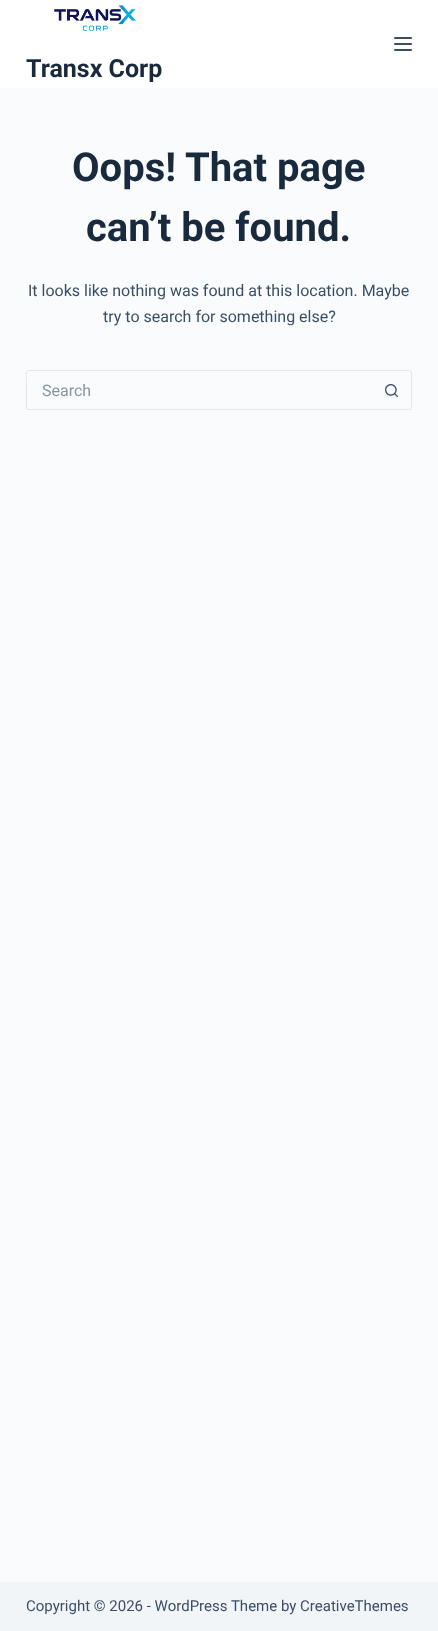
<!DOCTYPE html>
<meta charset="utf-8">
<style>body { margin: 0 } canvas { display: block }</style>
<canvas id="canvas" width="438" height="1631"></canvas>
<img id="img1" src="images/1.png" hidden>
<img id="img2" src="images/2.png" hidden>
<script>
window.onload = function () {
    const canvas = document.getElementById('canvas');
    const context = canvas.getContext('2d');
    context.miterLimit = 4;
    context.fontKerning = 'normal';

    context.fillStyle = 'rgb(250, 251, 252)';
    context.fillRect(0, 0, 438, 1631);
    context.fillStyle = 'rgb(255, 255, 255)';
    context.fillRect(0, 0, 438, 88);
    context.fillStyle = 'rgb(58, 79, 102)';
    context.beginPath();
    context.roundRect(394, 37, 18, 2, 1);
    context.fill();
    context.beginPath();
    context.roundRect(394, 43, 18, 2, 1);
    context.fill();
    context.beginPath();
    context.roundRect(394, 49, 18, 2, 1);
    context.fill();
    context.drawImage(document.getElementById('img1'), 54, 5, 82, 26);
    context.fillStyle = 'rgb(225, 232, 237)';
    context.beginPath();
    context.moveTo(29, 370);
    context.lineTo(372, 370);
    context.lineTo(372, 410);
    context.lineTo(29, 410);
    context.bezierCurveTo(27, 410, 26, 409, 26, 407);
    context.lineTo(26, 373);
    context.bezierCurveTo(26, 371, 27, 370, 29, 370);
    context.closePath();
    context.moveTo(29, 371);
    context.lineTo(372, 371);
    context.lineTo(372, 409);
    context.lineTo(28, 409);
    context.lineTo(27, 407);
    context.lineTo(27, 379);
    context.bezierCurveTo(27, 378, 26, 373, 28, 371);
    context.closePath();
    context.fill('evenodd');
    context.beginPath();
    context.moveTo(372, 370);
    context.lineTo(409, 370);
    context.bezierCurveTo(411, 370, 412, 371, 412, 373);
    context.lineTo(412, 407);
    context.bezierCurveTo(412, 409, 411, 410, 409, 410);
    context.lineTo(372, 410);
    context.closePath();
    context.moveTo(372, 371);
    context.lineTo(409, 371);
    context.bezierCurveTo(410, 371, 411, 372, 411, 373);
    context.lineTo(411, 407);
    context.bezierCurveTo(411, 408, 410, 409, 409, 409);
    context.lineTo(372, 409);
    context.closePath();
    context.fill('evenodd');
    context.drawImage(document.getElementById('img2'), 385, 384, 13, 13);
    context.fillStyle = 'rgb(242, 245, 247)';
    context.fillRect(0, 1582, 438, 49);
    context.font = 'bold 25px Roboto';
    context.fillStyle = 'rgb(25, 42, 61)';
    context.fillText('Transx Corp', 26, 77);
    context.font = 'bold 40px Roboto';
    context.fillText('Oops! That page', 72, 181);
    context.fillText('can’t be found.', 86, 241);
    context.font = '16px Roboto';
    context.fillStyle = 'rgb(58, 79, 102)';
    context.fillText('It looks like nothing was found at this location. Maybe', 28, 296);
    context.fillText('try to search for something else?', 103, 322);
    context.fillStyle = 'rgb(135, 148, 162)';
    context.fillText('Search', 42, 396);
    context.font = '15px Roboto';
    context.fillStyle = 'rgb(58, 79, 102)';
    context.fillText('Copyright © 2026 - WordPress Theme by CreativeThemes', 26, 1611);
};
</script>
